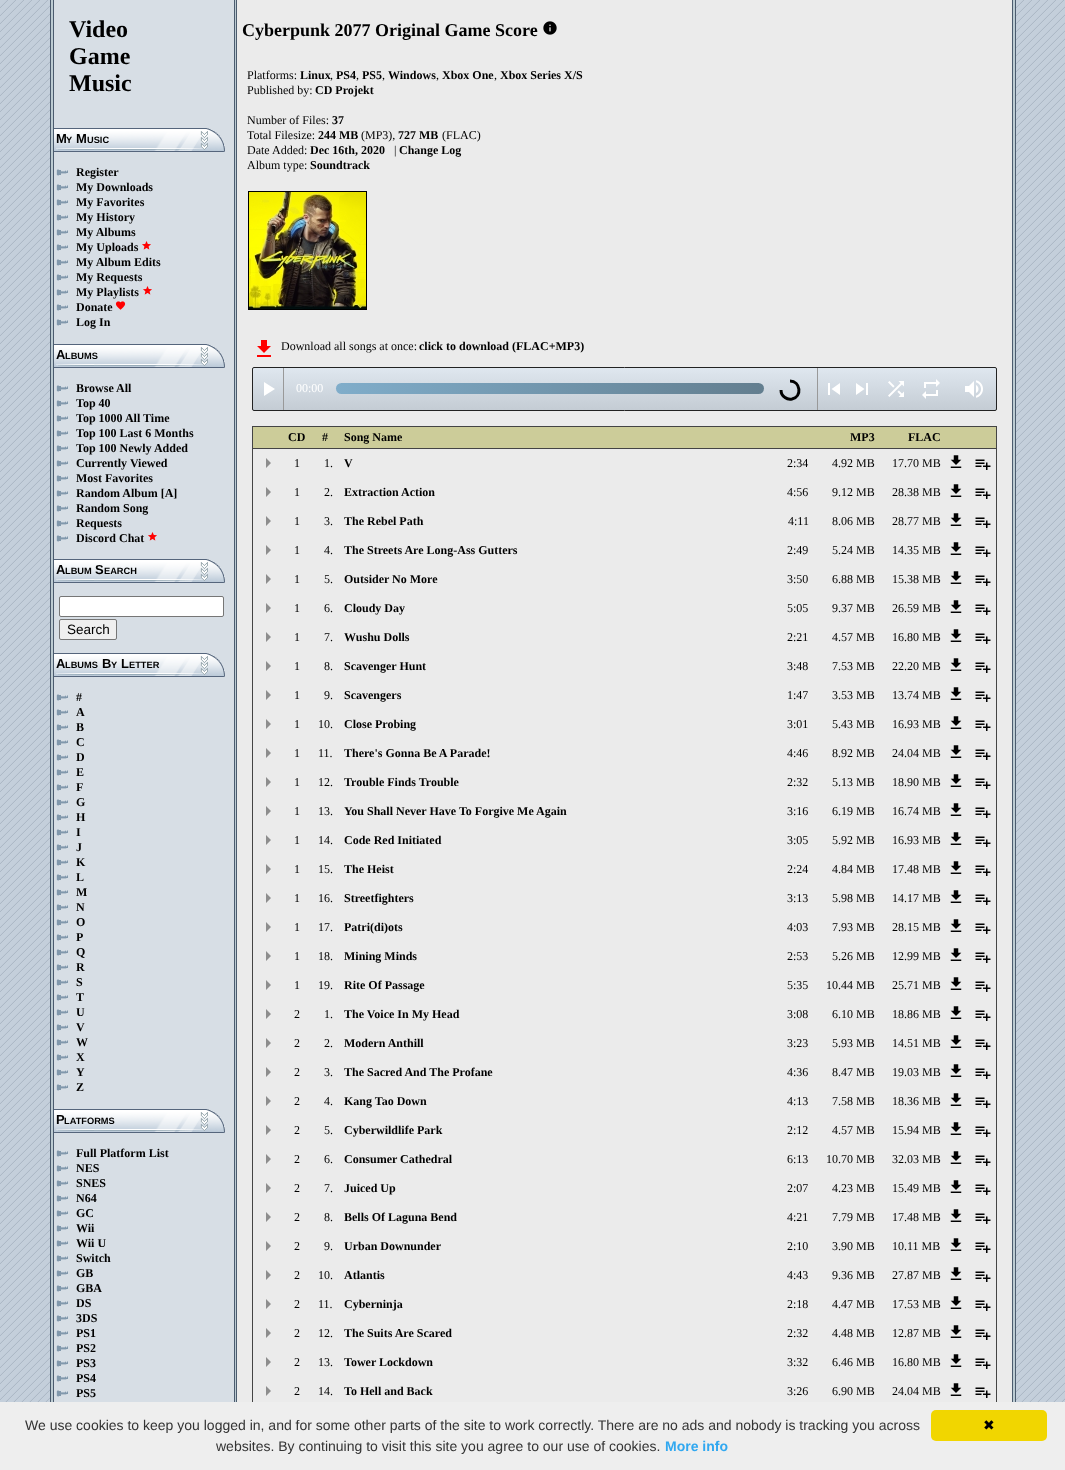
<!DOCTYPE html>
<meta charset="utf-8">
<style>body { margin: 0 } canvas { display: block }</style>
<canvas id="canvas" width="1065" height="1470"></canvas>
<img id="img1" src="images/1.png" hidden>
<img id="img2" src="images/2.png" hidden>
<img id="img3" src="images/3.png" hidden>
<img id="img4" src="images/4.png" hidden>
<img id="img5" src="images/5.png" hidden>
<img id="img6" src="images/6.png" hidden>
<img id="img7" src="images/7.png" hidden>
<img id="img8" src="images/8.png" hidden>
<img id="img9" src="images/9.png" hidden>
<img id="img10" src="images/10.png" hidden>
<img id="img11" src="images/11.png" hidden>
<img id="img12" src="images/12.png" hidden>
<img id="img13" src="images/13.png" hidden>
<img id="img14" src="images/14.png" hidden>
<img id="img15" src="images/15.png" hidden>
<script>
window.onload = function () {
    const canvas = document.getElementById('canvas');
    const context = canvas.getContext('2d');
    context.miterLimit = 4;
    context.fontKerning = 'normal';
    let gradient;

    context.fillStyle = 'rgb(255, 255, 255)';
    context.fillRect(0, 0, 1065, 1470);
    context.drawImage(document.getElementById('img1'), 0, 0, 1065, 1402);
    context.fillStyle = 'rgb(188, 203, 210)';
    context.fillRect(51, 0, 964, 1402);
    context.fillStyle = 'rgb(75, 91, 110)';
    context.fillRect(1015, 0, 1, 1402);
    context.fillRect(50, 0, 1, 1402);
    context.fillStyle = 'rgb(215, 222, 229)';
    context.fillRect(54, 0, 180, 1402);
    context.fillStyle = 'rgb(75, 91, 110)';
    context.fillRect(234, 0, 1, 1402);
    context.fillRect(53, 0, 1, 1402);
    context.drawImage(document.getElementById('img2'), 54, 128, 171, 24);
    context.drawImage(document.getElementById('img3'), 56, 169, 12, 7);
    context.drawImage(document.getElementById('img3'), 56, 184, 12, 7);
    context.drawImage(document.getElementById('img3'), 56, 199, 12, 7);
    context.drawImage(document.getElementById('img3'), 56, 214, 12, 7);
    context.drawImage(document.getElementById('img3'), 56, 229, 12, 7);
    context.drawImage(document.getElementById('img3'), 56, 244, 12, 7);
    context.drawImage(document.getElementById('img4'), 142, 241, 9, 9);
    context.drawImage(document.getElementById('img3'), 56, 259, 12, 7);
    context.drawImage(document.getElementById('img3'), 56, 274, 12, 7);
    context.drawImage(document.getElementById('img3'), 56, 289, 12, 7);
    context.drawImage(document.getElementById('img4'), 143, 286, 9, 9);
    context.drawImage(document.getElementById('img3'), 56, 304, 12, 7);
    context.drawImage(document.getElementById('img5'), 115, 301, 11, 9);
    context.drawImage(document.getElementById('img3'), 56, 319, 12, 7);
    context.drawImage(document.getElementById('img2'), 54, 344, 171, 24);
    context.drawImage(document.getElementById('img3'), 56, 385, 12, 7);
    context.drawImage(document.getElementById('img3'), 56, 400, 12, 7);
    context.drawImage(document.getElementById('img3'), 56, 415, 12, 7);
    context.drawImage(document.getElementById('img3'), 56, 430, 12, 7);
    context.drawImage(document.getElementById('img3'), 56, 445, 12, 7);
    context.drawImage(document.getElementById('img3'), 56, 460, 12, 7);
    context.drawImage(document.getElementById('img3'), 56, 475, 12, 7);
    context.drawImage(document.getElementById('img3'), 56, 490, 12, 7);
    context.drawImage(document.getElementById('img3'), 56, 505, 12, 7);
    context.drawImage(document.getElementById('img3'), 56, 520, 12, 7);
    context.drawImage(document.getElementById('img3'), 56, 535, 12, 7);
    context.drawImage(document.getElementById('img4'), 148, 532, 9, 9);
    context.drawImage(document.getElementById('img2'), 54, 559, 171, 24);
    context.fillStyle = 'rgb(255, 255, 255)';
    context.beginPath();
    context.roundRect(59.5, 596.5, 164, 20, 1.5);
    context.fill();
    context.strokeStyle = 'rgb(118, 118, 118)';
    context.stroke();
    context.fillStyle = 'rgb(239, 239, 239)';
    context.beginPath();
    context.roundRect(59.5, 619.5, 57, 20, 1.5);
    context.fill();
    context.stroke();
    context.drawImage(document.getElementById('img2'), 54, 653, 171, 24);
    context.drawImage(document.getElementById('img3'), 56, 694, 12, 7);
    context.drawImage(document.getElementById('img3'), 56, 709, 12, 7);
    context.drawImage(document.getElementById('img3'), 56, 724, 12, 7);
    context.drawImage(document.getElementById('img3'), 56, 739, 12, 7);
    context.drawImage(document.getElementById('img3'), 56, 754, 12, 7);
    context.drawImage(document.getElementById('img3'), 56, 769, 12, 7);
    context.drawImage(document.getElementById('img3'), 56, 784, 12, 7);
    context.drawImage(document.getElementById('img3'), 56, 799, 12, 7);
    context.drawImage(document.getElementById('img3'), 56, 814, 12, 7);
    context.drawImage(document.getElementById('img3'), 56, 829, 12, 7);
    context.drawImage(document.getElementById('img3'), 56, 844, 12, 7);
    context.drawImage(document.getElementById('img3'), 56, 859, 12, 7);
    context.drawImage(document.getElementById('img3'), 56, 874, 12, 7);
    context.drawImage(document.getElementById('img3'), 56, 889, 12, 7);
    context.drawImage(document.getElementById('img3'), 56, 904, 12, 7);
    context.drawImage(document.getElementById('img3'), 56, 919, 12, 7);
    context.drawImage(document.getElementById('img3'), 56, 934, 12, 7);
    context.drawImage(document.getElementById('img3'), 56, 949, 12, 7);
    context.drawImage(document.getElementById('img3'), 56, 964, 12, 7);
    context.drawImage(document.getElementById('img3'), 56, 979, 12, 7);
    context.drawImage(document.getElementById('img3'), 56, 994, 12, 7);
    context.drawImage(document.getElementById('img3'), 56, 1009, 12, 7);
    context.drawImage(document.getElementById('img3'), 56, 1024, 12, 7);
    context.drawImage(document.getElementById('img3'), 56, 1039, 12, 7);
    context.drawImage(document.getElementById('img3'), 56, 1054, 12, 7);
    context.drawImage(document.getElementById('img3'), 56, 1069, 12, 7);
    context.drawImage(document.getElementById('img3'), 56, 1084, 12, 7);
    context.drawImage(document.getElementById('img2'), 54, 1109, 171, 24);
    context.drawImage(document.getElementById('img3'), 56, 1150, 12, 7);
    context.drawImage(document.getElementById('img3'), 56, 1165, 12, 7);
    context.drawImage(document.getElementById('img3'), 56, 1180, 12, 7);
    context.drawImage(document.getElementById('img3'), 56, 1195, 12, 7);
    context.drawImage(document.getElementById('img3'), 56, 1210, 12, 7);
    context.drawImage(document.getElementById('img3'), 56, 1225, 12, 7);
    context.drawImage(document.getElementById('img3'), 56, 1240, 12, 7);
    context.drawImage(document.getElementById('img3'), 56, 1255, 12, 7);
    context.drawImage(document.getElementById('img3'), 56, 1270, 12, 7);
    context.drawImage(document.getElementById('img3'), 56, 1285, 12, 7);
    context.drawImage(document.getElementById('img3'), 56, 1300, 12, 7);
    context.drawImage(document.getElementById('img3'), 56, 1315, 12, 7);
    context.drawImage(document.getElementById('img3'), 56, 1330, 12, 7);
    context.drawImage(document.getElementById('img3'), 56, 1345, 12, 7);
    context.drawImage(document.getElementById('img3'), 56, 1360, 12, 7);
    context.drawImage(document.getElementById('img3'), 56, 1375, 12, 7);
    context.drawImage(document.getElementById('img3'), 56, 1390, 12, 7);
    context.fillStyle = 'rgb(75, 91, 110)';
    context.fillRect(1012, 0, 1, 1402);
    context.fillStyle = 'rgb(235, 235, 235)';
    context.fillRect(237, 0, 775, 1402);
    context.fillStyle = 'rgb(75, 91, 110)';
    context.fillRect(236, 0, 1, 1402);
    context.drawImage(document.getElementById('img6'), 543, 21, 14, 14);
    context.strokeStyle = 'rgb(0, 0, 0)';
    context.strokeRect(248.5, 191.5, 118, 118);
    context.drawImage(document.getElementById('img7'), 249, 192, 117, 117);
    context.drawImage(document.getElementById('img8'), 257, 340, 14, 17);
    context.save();
    context.beginPath();
    context.roundRect(252, 367, 745, 44, 2);
    context.clip();
    gradient = context.createLinearGradient(625, 368, 625, 410);
    gradient.addColorStop(0, 'rgb(223, 231, 239)');
    gradient.addColorStop(1, 'rgb(196, 204, 212)');
    context.fillStyle = gradient;
    context.fillRect(252, 368, 745, 42);
    context.restore();
    context.beginPath();
    context.roundRect(252.5, 367.5, 744, 43, 1.5);
    context.strokeStyle = 'rgb(34, 34, 34)';
    context.stroke();
    context.fillStyle = 'rgb(153, 153, 153)';
    context.fillRect(283, 368, 1, 42);
    context.fillStyle = 'rgb(255, 255, 255)';
    context.beginPath();
    context.moveTo(264, 382);
    context.lineTo(275, 389);
    context.lineTo(264, 396);
    context.closePath();
    context.fill();
    gradient = context.createLinearGradient(336, 389, 764, 389);
    gradient.addColorStop(0, 'rgb(128, 173, 202)');
    gradient.addColorStop(1, 'rgb(99, 126, 143)');
    context.fillStyle = gradient;
    context.beginPath();
    context.roundRect(336, 383, 428, 11, 5.5);
    context.fill();
    context.fillStyle = 'rgb(153, 153, 153)';
    context.fillRect(817, 368, 1, 42);
    context.beginPath();
    context.moveTo(790, 381);
    context.bezierCurveTo(800.5, 381, 802.5, 396.5, 792, 399);
    context.bezierCurveTo(789.5, 399.5, 787, 399, 785, 397.5);
    context.bezierCurveTo(782.5, 396, 781, 393, 781, 390);
    context.strokeStyle = 'rgb(0, 0, 0)';
    context.lineWidth = 3;
    context.stroke();
    context.drawImage(document.getElementById('img9'), 828, 383, 12, 12);
    context.drawImage(document.getElementById('img10'), 856, 383, 12, 12);
    context.drawImage(document.getElementById('img11'), 888, 381, 16, 16);
    context.drawImage(document.getElementById('img12'), 922, 379, 18, 20);
    context.drawImage(document.getElementById('img13'), 965, 380, 18, 18);
    context.fillStyle = 'rgb(68, 68, 68)';
    context.fillRect(252, 426, 745, 1);
    context.fillRect(996, 426, 1, 976);
    context.fillRect(252, 426, 1, 976);
    context.fillStyle = 'rgb(204, 204, 153)';
    context.fillRect(253, 427, 743, 21);
    context.fillStyle = 'rgb(68, 68, 68)';
    context.fillRect(252, 448, 745, 1);
    context.fillStyle = 'rgb(141, 141, 141)';
    context.beginPath();
    context.moveTo(266, 468);
    context.lineTo(266, 458);
    context.lineTo(271, 463);
    context.closePath();
    context.moveTo(266, 497);
    context.lineTo(266, 487);
    context.lineTo(271, 492);
    context.closePath();
    context.fill();
    context.drawImage(document.getElementById('img14'), 950, 455, 12, 13);
    context.drawImage(document.getElementById('img15'), 975, 459, 16, 11);
    context.drawImage(document.getElementById('img14'), 950, 484, 12, 13);
    context.drawImage(document.getElementById('img15'), 975, 488, 16, 11);
    context.beginPath();
    context.moveTo(266, 526);
    context.lineTo(266, 516);
    context.lineTo(271, 521);
    context.closePath();
    context.moveTo(266, 555);
    context.lineTo(266, 545);
    context.lineTo(271, 550);
    context.closePath();
    context.fill();
    context.drawImage(document.getElementById('img14'), 950, 513, 12, 13);
    context.drawImage(document.getElementById('img15'), 975, 517, 16, 11);
    context.drawImage(document.getElementById('img14'), 950, 542, 12, 13);
    context.drawImage(document.getElementById('img15'), 975, 546, 16, 11);
    context.beginPath();
    context.moveTo(266, 584);
    context.lineTo(266, 574);
    context.lineTo(271, 579);
    context.closePath();
    context.moveTo(266, 613);
    context.lineTo(266, 603);
    context.lineTo(271, 608);
    context.closePath();
    context.fill();
    context.drawImage(document.getElementById('img14'), 950, 571, 12, 13);
    context.drawImage(document.getElementById('img15'), 975, 575, 16, 11);
    context.drawImage(document.getElementById('img14'), 950, 600, 12, 13);
    context.drawImage(document.getElementById('img15'), 975, 604, 16, 11);
    context.beginPath();
    context.moveTo(266, 642);
    context.lineTo(266, 632);
    context.lineTo(271, 637);
    context.closePath();
    context.moveTo(266, 671);
    context.lineTo(266, 661);
    context.lineTo(271, 666);
    context.closePath();
    context.fill();
    context.drawImage(document.getElementById('img14'), 950, 629, 12, 13);
    context.drawImage(document.getElementById('img15'), 975, 633, 16, 11);
    context.drawImage(document.getElementById('img14'), 950, 658, 12, 13);
    context.drawImage(document.getElementById('img15'), 975, 662, 16, 11);
    context.beginPath();
    context.moveTo(266, 700);
    context.lineTo(266, 690);
    context.lineTo(271, 695);
    context.closePath();
    context.moveTo(266, 729);
    context.lineTo(266, 719);
    context.lineTo(271, 724);
    context.closePath();
    context.fill();
    context.drawImage(document.getElementById('img14'), 950, 687, 12, 13);
    context.drawImage(document.getElementById('img15'), 975, 691, 16, 11);
    context.drawImage(document.getElementById('img14'), 950, 716, 12, 13);
    context.drawImage(document.getElementById('img15'), 975, 720, 16, 11);
    context.beginPath();
    context.moveTo(266, 758);
    context.lineTo(266, 748);
    context.lineTo(271, 753);
    context.closePath();
    context.moveTo(266, 787);
    context.lineTo(266, 777);
    context.lineTo(271, 782);
    context.closePath();
    context.fill();
    context.drawImage(document.getElementById('img14'), 950, 745, 12, 13);
    context.drawImage(document.getElementById('img15'), 975, 749, 16, 11);
    context.drawImage(document.getElementById('img14'), 950, 774, 12, 13);
    context.drawImage(document.getElementById('img15'), 975, 778, 16, 11);
    context.beginPath();
    context.moveTo(266, 816);
    context.lineTo(266, 806);
    context.lineTo(271, 811);
    context.closePath();
    context.moveTo(266, 845);
    context.lineTo(266, 835);
    context.lineTo(271, 840);
    context.closePath();
    context.fill();
    context.drawImage(document.getElementById('img14'), 950, 803, 12, 13);
    context.drawImage(document.getElementById('img15'), 975, 807, 16, 11);
    context.drawImage(document.getElementById('img14'), 950, 832, 12, 13);
    context.drawImage(document.getElementById('img15'), 975, 836, 16, 11);
    context.beginPath();
    context.moveTo(266, 874);
    context.lineTo(266, 864);
    context.lineTo(271, 869);
    context.closePath();
    context.moveTo(266, 903);
    context.lineTo(266, 893);
    context.lineTo(271, 898);
    context.closePath();
    context.fill();
    context.drawImage(document.getElementById('img14'), 950, 861, 12, 13);
    context.drawImage(document.getElementById('img15'), 975, 865, 16, 11);
    context.drawImage(document.getElementById('img14'), 950, 890, 12, 13);
    context.drawImage(document.getElementById('img15'), 975, 894, 16, 11);
    context.beginPath();
    context.moveTo(266, 932);
    context.lineTo(266, 922);
    context.lineTo(271, 927);
    context.closePath();
    context.moveTo(266, 961);
    context.lineTo(266, 951);
    context.lineTo(271, 956);
    context.closePath();
    context.fill();
    context.drawImage(document.getElementById('img14'), 950, 919, 12, 13);
    context.drawImage(document.getElementById('img15'), 975, 923, 16, 11);
    context.drawImage(document.getElementById('img14'), 950, 948, 12, 13);
    context.drawImage(document.getElementById('img15'), 975, 952, 16, 11);
    context.beginPath();
    context.moveTo(266, 990);
    context.lineTo(266, 980);
    context.lineTo(271, 985);
    context.closePath();
    context.moveTo(266, 1019);
    context.lineTo(266, 1009);
    context.lineTo(271, 1014);
    context.closePath();
    context.fill();
    context.drawImage(document.getElementById('img14'), 950, 977, 12, 13);
    context.drawImage(document.getElementById('img15'), 975, 981, 16, 11);
    context.drawImage(document.getElementById('img14'), 950, 1006, 12, 13);
    context.drawImage(document.getElementById('img15'), 975, 1010, 16, 11);
    context.beginPath();
    context.moveTo(266, 1048);
    context.lineTo(266, 1038);
    context.lineTo(271, 1043);
    context.closePath();
    context.moveTo(266, 1077);
    context.lineTo(266, 1067);
    context.lineTo(271, 1072);
    context.closePath();
    context.fill();
    context.drawImage(document.getElementById('img14'), 950, 1035, 12, 13);
    context.drawImage(document.getElementById('img15'), 975, 1039, 16, 11);
    context.drawImage(document.getElementById('img14'), 950, 1064, 12, 13);
    context.drawImage(document.getElementById('img15'), 975, 1068, 16, 11);
    context.beginPath();
    context.moveTo(266, 1106);
    context.lineTo(266, 1096);
    context.lineTo(271, 1101);
    context.closePath();
    context.moveTo(266, 1135);
    context.lineTo(266, 1125);
    context.lineTo(271, 1130);
    context.closePath();
    context.fill();
    context.drawImage(document.getElementById('img14'), 950, 1093, 12, 13);
    context.drawImage(document.getElementById('img15'), 975, 1097, 16, 11);
    context.drawImage(document.getElementById('img14'), 950, 1122, 12, 13);
    context.drawImage(document.getElementById('img15'), 975, 1126, 16, 11);
    context.beginPath();
    context.moveTo(266, 1164);
    context.lineTo(266, 1154);
    context.lineTo(271, 1159);
    context.closePath();
    context.moveTo(266, 1193);
    context.lineTo(266, 1183);
    context.lineTo(271, 1188);
    context.closePath();
    context.fill();
    context.drawImage(document.getElementById('img14'), 950, 1151, 12, 13);
    context.drawImage(document.getElementById('img15'), 975, 1155, 16, 11);
    context.drawImage(document.getElementById('img14'), 950, 1180, 12, 13);
    context.drawImage(document.getElementById('img15'), 975, 1184, 16, 11);
    context.beginPath();
    context.moveTo(266, 1222);
    context.lineTo(266, 1212);
    context.lineTo(271, 1217);
    context.closePath();
    context.moveTo(266, 1251);
    context.lineTo(266, 1241);
    context.lineTo(271, 1246);
    context.closePath();
    context.fill();
    context.drawImage(document.getElementById('img14'), 950, 1209, 12, 13);
    context.drawImage(document.getElementById('img15'), 975, 1213, 16, 11);
    context.drawImage(document.getElementById('img14'), 950, 1238, 12, 13);
    context.drawImage(document.getElementById('img15'), 975, 1242, 16, 11);
    context.beginPath();
    context.moveTo(266, 1280);
    context.lineTo(266, 1270);
    context.lineTo(271, 1275);
    context.closePath();
    context.moveTo(266, 1309);
    context.lineTo(266, 1299);
    context.lineTo(271, 1304);
    context.closePath();
    context.fill();
    context.drawImage(document.getElementById('img14'), 950, 1267, 12, 13);
    context.drawImage(document.getElementById('img15'), 975, 1271, 16, 11);
    context.drawImage(document.getElementById('img14'), 950, 1296, 12, 13);
    context.drawImage(document.getElementById('img15'), 975, 1300, 16, 11);
    context.beginPath();
    context.moveTo(266, 1338);
    context.lineTo(266, 1328);
    context.lineTo(271, 1333);
    context.closePath();
    context.moveTo(266, 1367);
    context.lineTo(266, 1357);
    context.lineTo(271, 1362);
    context.closePath();
    context.fill();
    context.drawImage(document.getElementById('img14'), 950, 1325, 12, 13);
    context.drawImage(document.getElementById('img15'), 975, 1329, 16, 11);
    context.drawImage(document.getElementById('img14'), 950, 1354, 12, 13);
    context.drawImage(document.getElementById('img15'), 975, 1358, 16, 11);
    context.beginPath();
    context.moveTo(266, 1396);
    context.lineTo(266, 1386);
    context.lineTo(271, 1391);
    context.closePath();
    context.fill();
    context.drawImage(document.getElementById('img14'), 950, 1383, 12, 13);
    context.drawImage(document.getElementById('img15'), 975, 1387, 16, 11);
    context.fillStyle = 'rgb(238, 238, 238)';
    context.fillRect(0, 1402, 1065, 68);
    context.fillStyle = 'rgb(241, 214, 0)';
    context.beginPath();
    context.roundRect(931, 1410, 116, 31, 5);
    context.fill();
    context.font = 'bold 24px Liberation Serif';
    context.fillStyle = 'rgb(0, 0, 0)';
    context.fillText('Video', 69, 37);
    context.fillText('Game', 69, 64);
    context.fillText('Music', 69, 91);
    context.font = 'bold 13px Liberation Sans';
    context.fillText('M', 56, 143);
    context.font = 'bold 9.25px Liberation Sans';
    context.fillText('Y', 66, 143);
    context.font = 'bold 13px Liberation Sans';
    context.fillText('M', 76, 143);
    context.font = 'bold 9.25px Liberation Sans';
    context.fillText('USIC', 87, 143);
    context.font = 'bold 12px Liberation Serif';
    context.fillText('Register', 76, 176);
    context.fillText('My Downloads', 76, 191);
    context.fillText('My Favorites', 76, 206);
    context.fillText('My History', 76, 221);
    context.fillText('My Albums', 76, 236);
    context.fillText('My Uploads', 76, 251);
    context.fillText('My Album Edits', 76, 266);
    context.fillText('My Requests', 76, 281);
    context.fillText('My Playlists', 76, 296);
    context.fillText('Donate', 76, 311);
    context.fillText('Log In', 76, 326);
    context.font = 'bold 13px Liberation Sans';
    context.fillText('A', 56, 359);
    context.font = 'bold 9.25px Liberation Sans';
    context.fillText('LBUMS', 65, 359);
    context.font = 'bold 12px Liberation Serif';
    context.fillText('Browse All', 76, 392);
    context.fillText('Top 40', 76, 407);
    context.fillText('Top 1000 All Time', 76, 422);
    context.fillText('Top 100 Last 6 Months', 76, 437);
    context.fillText('Top 100 Newly Added', 76, 452);
    context.fillText('Currently Viewed', 76, 467);
    context.fillText('Most Favorites', 76, 482);
    context.fillText('Random Album [A]', 76, 497);
    context.fillText('Random Song', 76, 512);
    context.fillText('Requests', 76, 527);
    context.fillText('Discord Chat', 76, 542);
    context.font = 'bold 13px Liberation Sans';
    context.fillText('A', 56, 574);
    context.font = 'bold 9.25px Liberation Sans';
    context.fillText('LBUM', 65, 574);
    context.font = 'bold 13px Liberation Sans';
    context.fillText('S', 95, 574);
    context.font = 'bold 9.25px Liberation Sans';
    context.fillText('EARCH', 104, 574);
    context.font = '13.5px Liberation Sans';
    context.fillText('Search', 67, 634);
    context.font = 'bold 13px Liberation Sans';
    context.fillText('A', 56, 668);
    context.font = 'bold 9.25px Liberation Sans';
    context.fillText('LBUMS', 65, 668);
    context.font = 'bold 13px Liberation Sans';
    context.fillText('B', 102, 668);
    context.font = 'bold 9.25px Liberation Sans';
    context.fillText('Y', 111, 668);
    context.font = 'bold 13px Liberation Sans';
    context.fillText('L', 121, 668);
    context.font = 'bold 9.25px Liberation Sans';
    context.fillText('ETTER', 129, 668);
    context.font = 'bold 12px Liberation Serif';
    context.fillText('#', 76, 701);
    context.fillText('A', 76, 716);
    context.fillText('B', 76, 731);
    context.fillText('C', 76, 746);
    context.fillText('D', 76, 761);
    context.fillText('E', 76, 776);
    context.fillText('F', 76, 791);
    context.fillText('G', 76, 806);
    context.fillText('H', 76, 821);
    context.fillText('I', 76, 836);
    context.fillText('J', 76, 851);
    context.fillText('K', 76, 866);
    context.fillText('L', 76, 881);
    context.fillText('M', 76, 896);
    context.fillText('N', 76, 911);
    context.fillText('O', 76, 926);
    context.fillText('P', 76, 941);
    context.fillText('Q', 76, 956);
    context.fillText('R', 76, 971);
    context.fillText('S', 76, 986);
    context.fillText('T', 76, 1001);
    context.fillText('U', 76, 1016);
    context.fillText('V', 76, 1031);
    context.fillText('W', 76, 1046);
    context.fillText('X', 76, 1061);
    context.fillText('Y', 76, 1076);
    context.fillText('Z', 76, 1091);
    context.font = 'bold 13px Liberation Sans';
    context.fillText('P', 56, 1124);
    context.font = 'bold 9.25px Liberation Sans';
    context.fillText('LATFORMS', 64, 1124);
    context.font = 'bold 12px Liberation Serif';
    context.fillText('Full Platform List', 76, 1157);
    context.fillText('NES', 76, 1172);
    context.fillText('SNES', 76, 1187);
    context.fillText('N64', 76, 1202);
    context.fillText('GC', 76, 1217);
    context.fillText('Wii', 76, 1232);
    context.fillText('Wii U', 76, 1247);
    context.fillText('Switch', 76, 1262);
    context.fillText('GB', 76, 1277);
    context.fillText('GBA', 76, 1292);
    context.fillText('DS', 76, 1307);
    context.fillText('3DS', 76, 1322);
    context.fillText('PS1', 76, 1337);
    context.fillText('PS2', 76, 1352);
    context.fillText('PS3', 76, 1367);
    context.fillText('PS4', 76, 1382);
    context.fillText('PS5', 76, 1397);
    context.font = 'bold 18px Liberation Serif';
    context.fillText('Cyberpunk 2077 Original Game Score', 242, 36);
    context.font = '12px Liberation Serif';
    context.fillText('Platforms:', 247, 79);
    context.font = 'bold 12px Liberation Serif';
    context.fillText('Linux', 300, 79);
    context.font = '12px Liberation Serif';
    context.fillText(',', 330, 79);
    context.font = 'bold 12px Liberation Serif';
    context.fillText('PS4', 336, 79);
    context.font = '12px Liberation Serif';
    context.fillText(',', 356, 79);
    context.font = 'bold 12px Liberation Serif';
    context.fillText('PS5', 362, 79);
    context.font = '12px Liberation Serif';
    context.fillText(',', 382, 79);
    context.font = 'bold 12px Liberation Serif';
    context.fillText('Windows', 388, 79);
    context.font = '12px Liberation Serif';
    context.fillText(',', 436, 79);
    context.font = 'bold 12px Liberation Serif';
    context.fillText('Xbox One', 442, 79);
    context.font = '12px Liberation Serif';
    context.fillText(',', 494, 79);
    context.font = 'bold 12px Liberation Serif';
    context.fillText('Xbox Series X/S', 500, 79);
    context.font = '12px Liberation Serif';
    context.fillText('Published by:', 247, 94);
    context.font = 'bold 12px Liberation Serif';
    context.fillText('CD Projekt', 315, 94);
    context.font = '12px Liberation Serif';
    context.fillText('Number of Files:', 247, 124);
    context.font = 'bold 12px Liberation Serif';
    context.fillText('37', 332, 124);
    context.font = '12px Liberation Serif';
    context.fillText('Total Filesize:', 247, 139);
    context.font = 'bold 12px Liberation Serif';
    context.fillText('244 MB', 318, 139);
    context.font = '12px Liberation Serif';
    context.fillText('(MP3),', 361, 139);
    context.font = 'bold 12px Liberation Serif';
    context.fillText('727 MB', 398, 139);
    context.font = '12px Liberation Serif';
    context.fillText('(FLAC)', 442, 139);
    context.fillText('Date Added:', 247, 154);
    context.font = 'bold 12px Liberation Serif';
    context.fillText('Dec 16th, 2020', 310, 154);
    context.font = '12px Liberation Serif';
    context.fillText('|', 394, 154);
    context.font = 'bold 12px Liberation Serif';
    context.fillText('Change Log', 399, 154);
    context.font = '12px Liberation Serif';
    context.fillText('Album type:', 247, 169);
    context.font = 'bold 12px Liberation Serif';
    context.fillText('Soundtrack', 310, 169);
    context.font = '12px Liberation Serif';
    context.fillText('Download all songs at once:', 281, 350);
    context.font = 'bold 12px Liberation Serif';
    context.fillText('click to download (FLAC+MP3)', 419, 350);
    context.font = '12px Liberation Serif';
    context.fillStyle = 'rgb(255, 255, 255)';
    context.fillText('00:00', 296, 392);
    context.font = 'bold 12px Liberation Serif';
    context.fillStyle = 'rgb(0, 0, 0)';
    context.fillText('CD', 288, 441);
    context.fillText('#', 322, 441);
    context.fillText('Song Name', 344, 441);
    context.fillText('MP3', 850, 441);
    context.fillText('FLAC', 908, 441);
    context.font = '12px Liberation Serif';
    context.fillText('1', 294, 467);
    context.fillText('1.', 324, 467);
    context.font = 'bold 12px Liberation Serif';
    context.fillText('V', 344, 467);
    context.font = '12px Liberation Serif';
    context.fillText('2:34', 787, 467);
    context.fillText('4.92 MB', 832, 467);
    context.fillText('17.70 MB', 892, 467);
    context.fillText('1', 294, 496);
    context.fillText('2.', 324, 496);
    context.font = 'bold 12px Liberation Serif';
    context.fillText('Extraction Action', 344, 496);
    context.font = '12px Liberation Serif';
    context.fillText('4:56', 787, 496);
    context.fillText('9.12 MB', 832, 496);
    context.fillText('28.38 MB', 892, 496);
    context.fillText('1', 294, 525);
    context.fillText('3.', 324, 525);
    context.font = 'bold 12px Liberation Serif';
    context.fillText('The Rebel Path', 344, 525);
    context.font = '12px Liberation Serif';
    context.fillText('4:11', 788, 525);
    context.fillText('8.06 MB', 832, 525);
    context.fillText('28.77 MB', 892, 525);
    context.fillText('1', 294, 554);
    context.fillText('4.', 324, 554);
    context.font = 'bold 12px Liberation Serif';
    context.fillText('The Streets Are Long-Ass Gutters', 344, 554);
    context.font = '12px Liberation Serif';
    context.fillText('2:49', 787, 554);
    context.fillText('5.24 MB', 832, 554);
    context.fillText('14.35 MB', 892, 554);
    context.fillText('1', 294, 583);
    context.fillText('5.', 324, 583);
    context.font = 'bold 12px Liberation Serif';
    context.fillText('Outsider No More', 344, 583);
    context.font = '12px Liberation Serif';
    context.fillText('3:50', 787, 583);
    context.fillText('6.88 MB', 832, 583);
    context.fillText('15.38 MB', 892, 583);
    context.fillText('1', 294, 612);
    context.fillText('6.', 324, 612);
    context.font = 'bold 12px Liberation Serif';
    context.fillText('Cloudy Day', 344, 612);
    context.font = '12px Liberation Serif';
    context.fillText('5:05', 787, 612);
    context.fillText('9.37 MB', 832, 612);
    context.fillText('26.59 MB', 892, 612);
    context.fillText('1', 294, 641);
    context.fillText('7.', 324, 641);
    context.font = 'bold 12px Liberation Serif';
    context.fillText('Wushu Dolls', 344, 641);
    context.font = '12px Liberation Serif';
    context.fillText('2:21', 787, 641);
    context.fillText('4.57 MB', 832, 641);
    context.fillText('16.80 MB', 892, 641);
    context.fillText('1', 294, 670);
    context.fillText('8.', 324, 670);
    context.font = 'bold 12px Liberation Serif';
    context.fillText('Scavenger Hunt', 344, 670);
    context.font = '12px Liberation Serif';
    context.fillText('3:48', 787, 670);
    context.fillText('7.53 MB', 832, 670);
    context.fillText('22.20 MB', 892, 670);
    context.fillText('1', 294, 699);
    context.fillText('9.', 324, 699);
    context.font = 'bold 12px Liberation Serif';
    context.fillText('Scavengers', 344, 699);
    context.font = '12px Liberation Serif';
    context.fillText('1:47', 787, 699);
    context.fillText('3.53 MB', 832, 699);
    context.fillText('13.74 MB', 892, 699);
    context.fillText('1', 294, 728);
    context.fillText('10.', 318, 728);
    context.font = 'bold 12px Liberation Serif';
    context.fillText('Close Probing', 344, 728);
    context.font = '12px Liberation Serif';
    context.fillText('3:01', 787, 728);
    context.fillText('5.43 MB', 832, 728);
    context.fillText('16.93 MB', 892, 728);
    context.fillText('1', 294, 757);
    context.fillText('11.', 318, 757);
    context.font = 'bold 12px Liberation Serif';
    context.fillText('There\'s Gonna Be A Parade!', 344, 757);
    context.font = '12px Liberation Serif';
    context.fillText('4:46', 787, 757);
    context.fillText('8.92 MB', 832, 757);
    context.fillText('24.04 MB', 892, 757);
    context.fillText('1', 294, 786);
    context.fillText('12.', 318, 786);
    context.font = 'bold 12px Liberation Serif';
    context.fillText('Trouble Finds Trouble', 344, 786);
    context.font = '12px Liberation Serif';
    context.fillText('2:32', 787, 786);
    context.fillText('5.13 MB', 832, 786);
    context.fillText('18.90 MB', 892, 786);
    context.fillText('1', 294, 815);
    context.fillText('13.', 318, 815);
    context.font = 'bold 12px Liberation Serif';
    context.fillText('You Shall Never Have To Forgive Me Again', 344, 815);
    context.font = '12px Liberation Serif';
    context.fillText('3:16', 787, 815);
    context.fillText('6.19 MB', 832, 815);
    context.fillText('16.74 MB', 892, 815);
    context.fillText('1', 294, 844);
    context.fillText('14.', 318, 844);
    context.font = 'bold 12px Liberation Serif';
    context.fillText('Code Red Initiated', 344, 844);
    context.font = '12px Liberation Serif';
    context.fillText('3:05', 787, 844);
    context.fillText('5.92 MB', 832, 844);
    context.fillText('16.93 MB', 892, 844);
    context.fillText('1', 294, 873);
    context.fillText('15.', 318, 873);
    context.font = 'bold 12px Liberation Serif';
    context.fillText('The Heist', 344, 873);
    context.font = '12px Liberation Serif';
    context.fillText('2:24', 787, 873);
    context.fillText('4.84 MB', 832, 873);
    context.fillText('17.48 MB', 892, 873);
    context.fillText('1', 294, 902);
    context.fillText('16.', 318, 902);
    context.font = 'bold 12px Liberation Serif';
    context.fillText('Streetfighters', 344, 902);
    context.font = '12px Liberation Serif';
    context.fillText('3:13', 787, 902);
    context.fillText('5.98 MB', 832, 902);
    context.fillText('14.17 MB', 892, 902);
    context.fillText('1', 294, 931);
    context.fillText('17.', 318, 931);
    context.font = 'bold 12px Liberation Serif';
    context.fillText('Patri(di)ots', 344, 931);
    context.font = '12px Liberation Serif';
    context.fillText('4:03', 787, 931);
    context.fillText('7.93 MB', 832, 931);
    context.fillText('28.15 MB', 892, 931);
    context.fillText('1', 294, 960);
    context.fillText('18.', 318, 960);
    context.font = 'bold 12px Liberation Serif';
    context.fillText('Mining Minds', 344, 960);
    context.font = '12px Liberation Serif';
    context.fillText('2:53', 787, 960);
    context.fillText('5.26 MB', 832, 960);
    context.fillText('12.99 MB', 892, 960);
    context.fillText('1', 294, 989);
    context.fillText('19.', 318, 989);
    context.font = 'bold 12px Liberation Serif';
    context.fillText('Rite Of Passage', 344, 989);
    context.font = '12px Liberation Serif';
    context.fillText('5:35', 787, 989);
    context.fillText('10.44 MB', 826, 989);
    context.fillText('25.71 MB', 892, 989);
    context.fillText('2', 294, 1018);
    context.fillText('1.', 324, 1018);
    context.font = 'bold 12px Liberation Serif';
    context.fillText('The Voice In My Head', 344, 1018);
    context.font = '12px Liberation Serif';
    context.fillText('3:08', 787, 1018);
    context.fillText('6.10 MB', 832, 1018);
    context.fillText('18.86 MB', 892, 1018);
    context.fillText('2', 294, 1047);
    context.fillText('2.', 324, 1047);
    context.font = 'bold 12px Liberation Serif';
    context.fillText('Modern Anthill', 344, 1047);
    context.font = '12px Liberation Serif';
    context.fillText('3:23', 787, 1047);
    context.fillText('5.93 MB', 832, 1047);
    context.fillText('14.51 MB', 892, 1047);
    context.fillText('2', 294, 1076);
    context.fillText('3.', 324, 1076);
    context.font = 'bold 12px Liberation Serif';
    context.fillText('The Sacred And The Profane', 344, 1076);
    context.font = '12px Liberation Serif';
    context.fillText('4:36', 787, 1076);
    context.fillText('8.47 MB', 832, 1076);
    context.fillText('19.03 MB', 892, 1076);
    context.fillText('2', 294, 1105);
    context.fillText('4.', 324, 1105);
    context.font = 'bold 12px Liberation Serif';
    context.fillText('Kang Tao Down', 344, 1105);
    context.font = '12px Liberation Serif';
    context.fillText('4:13', 787, 1105);
    context.fillText('7.58 MB', 832, 1105);
    context.fillText('18.36 MB', 892, 1105);
    context.fillText('2', 294, 1134);
    context.fillText('5.', 324, 1134);
    context.font = 'bold 12px Liberation Serif';
    context.fillText('Cyberwildlife Park', 344, 1134);
    context.font = '12px Liberation Serif';
    context.fillText('2:12', 787, 1134);
    context.fillText('4.57 MB', 832, 1134);
    context.fillText('15.94 MB', 892, 1134);
    context.fillText('2', 294, 1163);
    context.fillText('6.', 324, 1163);
    context.font = 'bold 12px Liberation Serif';
    context.fillText('Consumer Cathedral', 344, 1163);
    context.font = '12px Liberation Serif';
    context.fillText('6:13', 787, 1163);
    context.fillText('10.70 MB', 826, 1163);
    context.fillText('32.03 MB', 892, 1163);
    context.fillText('2', 294, 1192);
    context.fillText('7.', 324, 1192);
    context.font = 'bold 12px Liberation Serif';
    context.fillText('Juiced Up', 344, 1192);
    context.font = '12px Liberation Serif';
    context.fillText('2:07', 787, 1192);
    context.fillText('4.23 MB', 832, 1192);
    context.fillText('15.49 MB', 892, 1192);
    context.fillText('2', 294, 1221);
    context.fillText('8.', 324, 1221);
    context.font = 'bold 12px Liberation Serif';
    context.fillText('Bells Of Laguna Bend', 344, 1221);
    context.font = '12px Liberation Serif';
    context.fillText('4:21', 787, 1221);
    context.fillText('7.79 MB', 832, 1221);
    context.fillText('17.48 MB', 892, 1221);
    context.fillText('2', 294, 1250);
    context.fillText('9.', 324, 1250);
    context.font = 'bold 12px Liberation Serif';
    context.fillText('Urban Downunder', 344, 1250);
    context.font = '12px Liberation Serif';
    context.fillText('2:10', 787, 1250);
    context.fillText('3.90 MB', 832, 1250);
    context.fillText('10.11 MB', 892, 1250);
    context.fillText('2', 294, 1279);
    context.fillText('10.', 318, 1279);
    context.font = 'bold 12px Liberation Serif';
    context.fillText('Atlantis', 344, 1279);
    context.font = '12px Liberation Serif';
    context.fillText('4:43', 787, 1279);
    context.fillText('9.36 MB', 832, 1279);
    context.fillText('27.87 MB', 892, 1279);
    context.fillText('2', 294, 1308);
    context.fillText('11.', 318, 1308);
    context.font = 'bold 12px Liberation Serif';
    context.fillText('Cyberninja', 344, 1308);
    context.font = '12px Liberation Serif';
    context.fillText('2:18', 787, 1308);
    context.fillText('4.47 MB', 832, 1308);
    context.fillText('17.53 MB', 892, 1308);
    context.fillText('2', 294, 1337);
    context.fillText('12.', 318, 1337);
    context.font = 'bold 12px Liberation Serif';
    context.fillText('The Suits Are Scared', 344, 1337);
    context.font = '12px Liberation Serif';
    context.fillText('2:32', 787, 1337);
    context.fillText('4.48 MB', 832, 1337);
    context.fillText('12.87 MB', 892, 1337);
    context.fillText('2', 294, 1366);
    context.fillText('13.', 318, 1366);
    context.font = 'bold 12px Liberation Serif';
    context.fillText('Tower Lockdown', 344, 1366);
    context.font = '12px Liberation Serif';
    context.fillText('3:32', 787, 1366);
    context.fillText('6.46 MB', 832, 1366);
    context.fillText('16.80 MB', 892, 1366);
    context.fillText('2', 294, 1395);
    context.fillText('14.', 318, 1395);
    context.font = 'bold 12px Liberation Serif';
    context.fillText('To Hell and Back', 344, 1395);
    context.font = '12px Liberation Serif';
    context.fillText('3:26', 787, 1395);
    context.fillText('6.90 MB', 832, 1395);
    context.fillText('24.04 MB', 892, 1395);
    context.font = '14px Liberation Sans';
    context.fillStyle = 'rgb(51, 51, 51)';
    context.fillText('We use cookies to keep you logged in, and for some other parts of the site to work correctly. There are no ads and nobody is tracking you across', 25, 1430);
    context.fillText('websites. By continuing to visit this site you agree to our use of cookies.', 216, 1451);
    context.font = 'bold 14px Liberation Sans';
    context.fillStyle = 'rgb(49, 168, 240)';
    context.fillText('More info', 665, 1451);
    context.font = '14px DejaVu Sans';
    context.fillStyle = 'rgb(0, 0, 0)';
    context.fillText('✖', 983, 1430);
};
</script>
